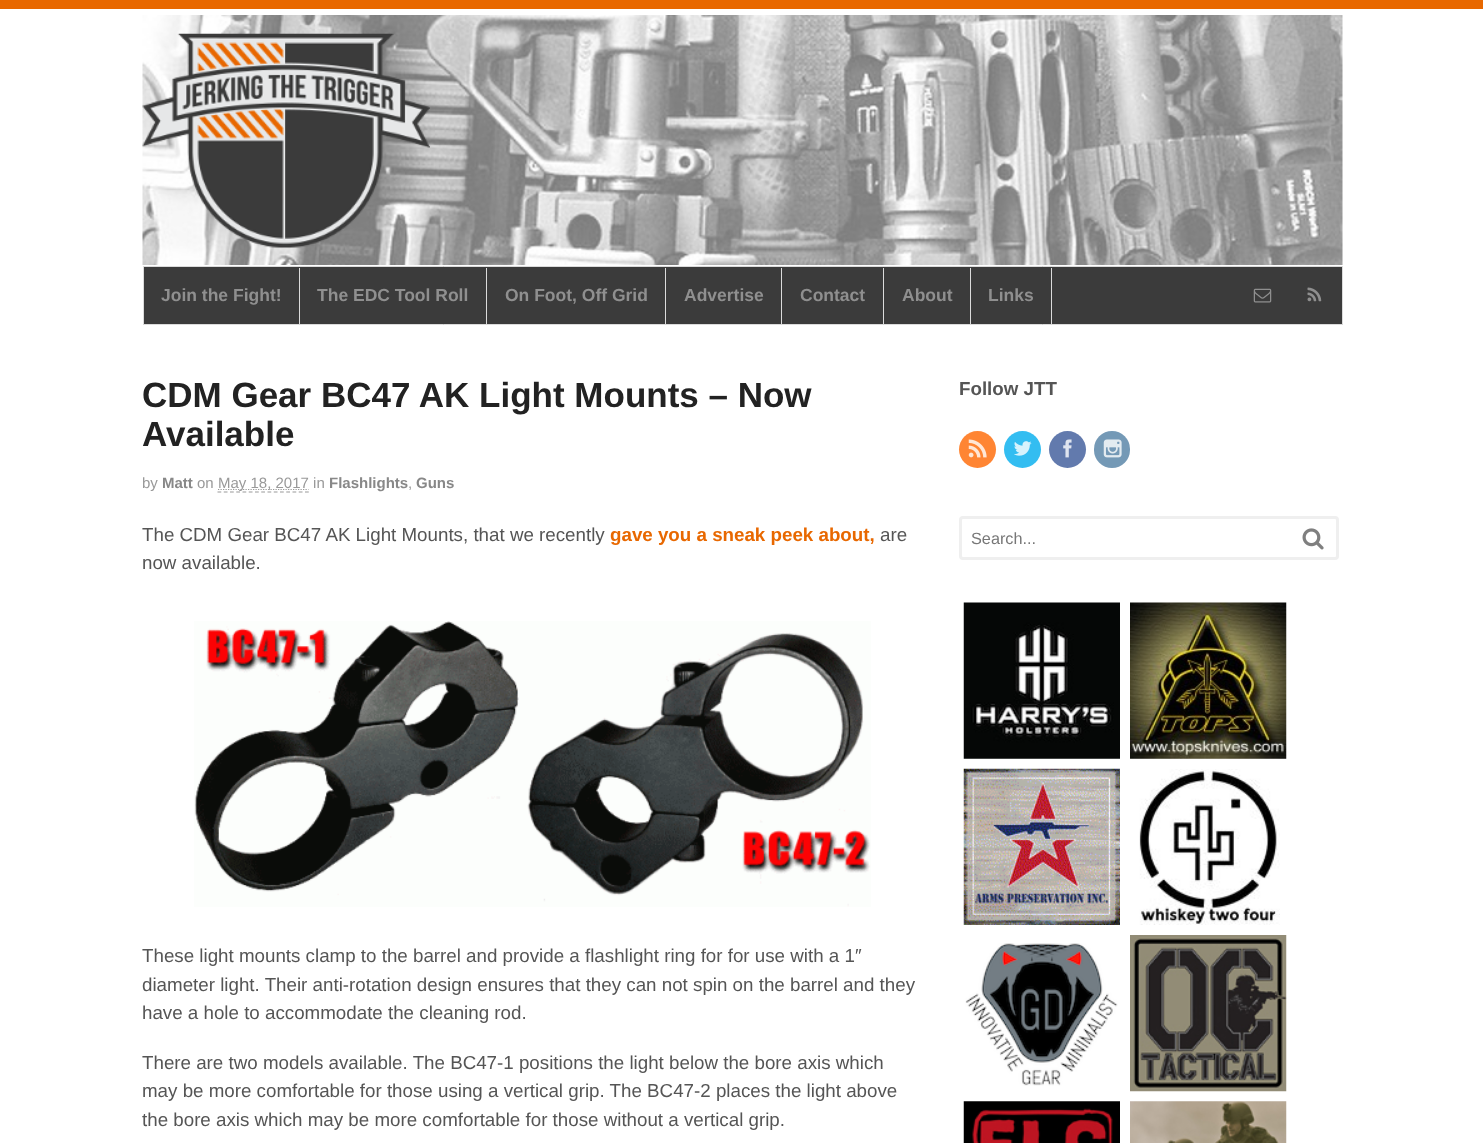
<!DOCTYPE html>
<meta charset="utf-8">
<style>body { margin: 0 } canvas { display: block }</style>
<canvas id="canvas" width="1483" height="1143"></canvas>
<img id="img1" src="images/1.png" hidden>
<img id="img2" src="images/2.png" hidden>
<img id="img3" src="images/3.png" hidden>
<img id="img4" src="images/4.png" hidden>
<img id="img5" src="images/5.png" hidden>
<img id="img6" src="images/6.png" hidden>
<img id="img7" src="images/7.png" hidden>
<img id="img8" src="images/8.png" hidden>
<img id="img9" src="images/9.png" hidden>
<img id="img10" src="images/10.png" hidden>
<img id="img11" src="images/11.png" hidden>
<img id="img12" src="images/12.png" hidden>
<img id="img13" src="images/13.png" hidden>
<img id="img14" src="images/14.png" hidden>
<img id="img15" src="images/15.png" hidden>
<img id="img16" src="images/16.png" hidden>
<img id="img17" src="images/17.png" hidden>
<img id="img18" src="images/18.png" hidden>
<script>
window.onload = function () {
    const canvas = document.getElementById('canvas');
    const context = canvas.getContext('2d');
    context.miterLimit = 4;
    context.fontKerning = 'normal';

    context.fillStyle = 'rgb(255, 255, 255)';
    context.fillRect(0, 0, 1483, 1143);
    context.fillStyle = 'rgb(232, 104, 0)';
    context.fillRect(0, 0, 1483, 9);
    context.drawImage(document.getElementById('img1'), 142, 15, 1201, 250);
    context.drawImage(document.getElementById('img2'), 142, 33, 288, 215);
    context.fillStyle = 'rgb(59, 59, 59)';
    context.beginPath();
    context.roundRect(143.5, 266.5, 1199, 58, 0.5);
    context.fill();
    context.strokeStyle = 'rgb(219, 219, 219)';
    context.stroke();
    context.fillStyle = 'rgb(219, 219, 219)';
    context.fillRect(299, 268, 1, 56);
    context.fillRect(486, 268, 1, 56);
    context.fillRect(665, 268, 1, 56);
    context.fillRect(781, 268, 1, 56);
    context.fillRect(883, 268, 1, 56);
    context.fillRect(970, 268, 1, 56);
    context.fillRect(1051, 268, 1, 56);
    context.drawImage(document.getElementById('img3'), 1253, 288, 19, 15);
    context.drawImage(document.getElementById('img4'), 1307, 287, 15, 15);
    context.beginPath();
    context.moveTo(217.5, 492);
    context.lineTo(309, 492);
    context.strokeStyle = 'rgb(153, 153, 153)';
    context.lineWidth = 1.2;
    context.setLineDash([3.75, 2.5]);
    context.stroke();
    context.beginPath();
    context.moveTo(218, 489.5);
    context.lineTo(308.5, 489.5);
    context.setLineDash([1.25, 1.25]);
    context.stroke();
    context.drawImage(document.getElementById('img5'), 194, 621, 677, 286);
    context.fillStyle = 'rgb(255, 133, 51)';
    context.beginPath();
    context.arc(977.5, 449.5, 18.5, 0, 2 * Math.PI);
    context.fill();
    context.drawImage(document.getElementById('img6'), 968, 439, 19, 19);
    context.fillStyle = 'rgb(51, 189, 241)';
    context.beginPath();
    context.arc(1022.5, 449.5, 18.5, 0, 2 * Math.PI);
    context.fill();
    context.drawImage(document.getElementById('img7'), 1014, 441, 18, 15);
    context.fillStyle = 'rgb(98, 122, 173)';
    context.beginPath();
    context.arc(1067.5, 449.5, 18.5, 0, 2 * Math.PI);
    context.fill();
    context.drawImage(document.getElementById('img8'), 1063, 439, 9, 19);
    context.fillStyle = 'rgb(116, 153, 182)';
    context.beginPath();
    context.roundRect(1094, 431, 36, 37, 18);
    context.fill();
    context.drawImage(document.getElementById('img9'), 1103, 439, 19, 19);
    context.beginPath();
    context.roundRect(960.5, 517.5, 377, 41, 2.5);
    context.strokeStyle = 'rgb(239, 239, 239)';
    context.lineWidth = 3;
    context.setLineDash([]);
    context.stroke();
    context.drawImage(document.getElementById('img10'), 1302, 528, 22, 22);
    context.drawImage(document.getElementById('img11'), 963, 602, 157, 157);
    context.drawImage(document.getElementById('img12'), 1130, 602, 157, 157);
    context.drawImage(document.getElementById('img13'), 963, 768, 157, 157);
    context.drawImage(document.getElementById('img14'), 1139, 769, 141, 156);
    context.drawImage(document.getElementById('img15'), 965, 943, 153, 143);
    context.drawImage(document.getElementById('img16'), 1130, 935, 157, 157);
    context.drawImage(document.getElementById('img17'), 963, 1101, 157, 42);
    context.drawImage(document.getElementById('img18'), 1130, 1101, 157, 42);
    context.font = 'bold 17.5px Liberation Sans';
    context.fillStyle = 'rgb(143, 143, 143)';
    context.fillText('Join the Fight!', 161, 301);
    context.fillText('The EDC Tool Roll', 317, 301);
    context.fillText('On Foot, Off Grid', 505, 301);
    context.fillText('Advertise', 684, 301);
    context.fillText('Contact', 800, 301);
    context.fillText('About', 902, 301);
    context.fillText('Links', 988, 301);
    context.font = 'bold 35px Liberation Sans';
    context.fillStyle = 'rgb(34, 34, 34)';
    context.fillText('CDM Gear BC47 AK Light Mounts – Now', 142, 407);
    context.fillText('Available', 142, 446);
    context.font = '15px Liberation Sans';
    context.fillStyle = 'rgb(153, 153, 153)';
    context.fillText('by', 142, 488);
    context.font = 'bold 15px Liberation Sans';
    context.fillStyle = 'rgb(136, 136, 136)';
    context.fillText('Matt', 162, 488);
    context.font = '15px Liberation Sans';
    context.fillStyle = 'rgb(153, 153, 153)';
    context.fillText('on', 197, 488);
    context.fillText('May 18, 2017 in', 218, 488);
    context.font = 'bold 15px Liberation Sans';
    context.fillStyle = 'rgb(136, 136, 136)';
    context.fillText('Flashlights', 329, 488);
    context.font = '15px Liberation Sans';
    context.fillStyle = 'rgb(153, 153, 153)';
    context.fillText(',', 408, 488);
    context.font = 'bold 15px Liberation Sans';
    context.fillStyle = 'rgb(136, 136, 136)';
    context.fillText('Guns', 416, 488);
    context.font = '18.75px Liberation Sans';
    context.fillStyle = 'rgb(85, 85, 85)';
    context.fillText('The CDM Gear BC47 AK Light Mounts, that we recently', 142, 541);
    context.font = 'bold 18.75px Liberation Sans';
    context.fillStyle = 'rgb(232, 104, 0)';
    context.fillText('gave you a sneak peek about,', 610, 541);
    context.font = '18.75px Liberation Sans';
    context.fillStyle = 'rgb(85, 85, 85)';
    context.fillText('are', 880, 541);
    context.fillText('now available.', 142, 569);
    context.fillText('These light mounts clamp to the barrel and provide a flashlight ring for for use with a 1″', 142, 962);
    context.fillText('diameter light. Their anti-rotation design ensures that they can not spin on the barrel and they', 142, 991);
    context.fillText('have a hole to accommodate the cleaning rod.', 142, 1019);
    context.fillText('There are two models available. The BC47-1 positions the light below the bore axis which', 142, 1069);
    context.fillText('may be more comfortable for those using a vertical grip. The BC47-2 places the light above', 142, 1097);
    context.fillText('the bore axis which may be more comfortable for those without a vertical grip.', 142, 1126);
    context.font = 'bold 18.75px Liberation Sans';
    context.fillText('Follow JTT', 959, 395);
    context.font = '16.25px Liberation Sans';
    context.fillStyle = 'rgb(119, 119, 119)';
    context.fillText('Search...', 971, 544);
};
</script>
